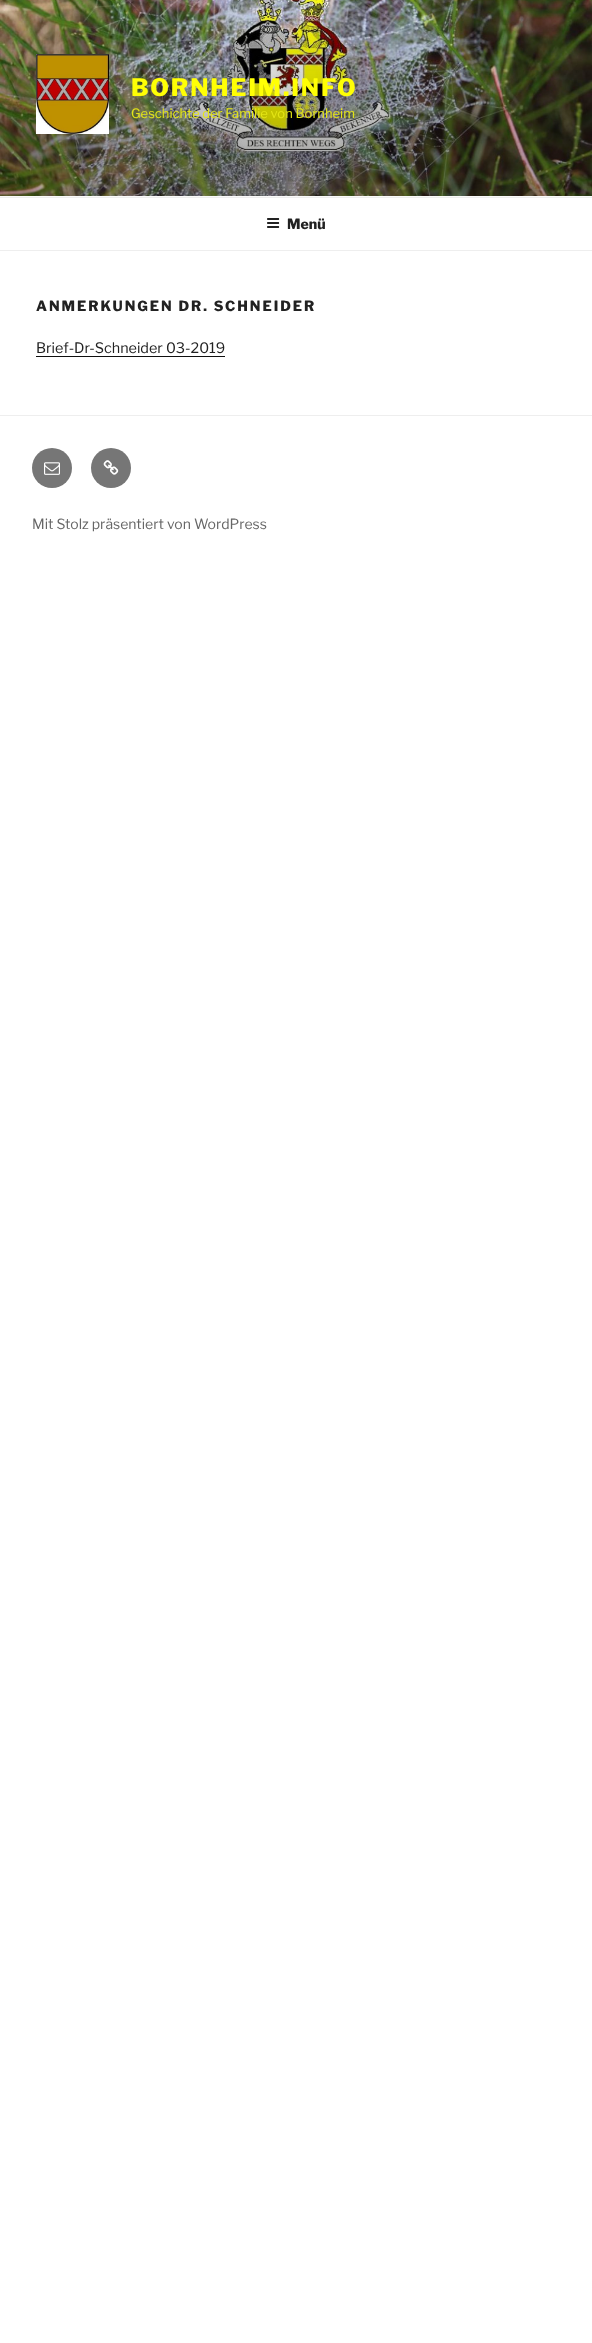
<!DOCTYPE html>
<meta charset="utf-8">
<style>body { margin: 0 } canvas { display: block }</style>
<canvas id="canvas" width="592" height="2343"></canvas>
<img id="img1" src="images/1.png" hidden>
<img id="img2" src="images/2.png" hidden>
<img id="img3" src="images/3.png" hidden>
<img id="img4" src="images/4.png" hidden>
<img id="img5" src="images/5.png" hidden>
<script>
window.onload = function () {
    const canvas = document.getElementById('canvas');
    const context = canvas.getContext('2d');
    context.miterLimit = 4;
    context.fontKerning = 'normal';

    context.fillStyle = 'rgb(255, 255, 255)';
    context.fillRect(0, 0, 592, 2343);
    context.fillStyle = 'rgb(250, 250, 250)';
    context.fillRect(0, 196, 592, 1);
    context.drawImage(document.getElementById('img1'), 0, 0, 592, 196);
    context.drawImage(document.getElementById('img2'), 36, 54, 73, 80);
    context.fillStyle = 'rgb(238, 238, 238)';
    context.fillRect(0, 197, 592, 1);
    context.fillRect(0, 250, 592, 1);
    context.drawImage(document.getElementById('img3'), 267, 218, 13, 10);
    context.fillStyle = 'rgb(15, 15, 15)';
    context.fillRect(36, 356, 189, 1);
    context.fillStyle = 'rgb(238, 238, 238)';
    context.fillRect(0, 415, 592, 1);
    context.fillStyle = 'rgb(118, 118, 118)';
    context.beginPath();
    context.arc(52, 468, 20, 0, 2 * Math.PI);
    context.fill();
    context.drawImage(document.getElementById('img4'), 44, 462, 16, 13);
    context.beginPath();
    context.arc(111, 468, 20, 0, 2 * Math.PI);
    context.fill();
    context.drawImage(document.getElementById('img5'), 103, 460, 16, 15);
    context.letterSpacing = '1.9px';
    context.font = '100 24px Libre Franklin';
    context.fillStyle = 'rgb(255, 255, 5)';
    context.fillText('BORNHEIM.INFO', 131, 96);
    context.letterSpacing = '0px';
    context.font = '100 13px "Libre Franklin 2"';
    context.fillStyle = 'rgb(228, 229, 22)';
    context.fillText('Geschichte der Familie von Bornheim', 131, 118);
    context.font = '100 14px Libre Franklin';
    context.fillStyle = 'rgb(34, 34, 34)';
    context.fillText('Menü', 287, 229);
    context.letterSpacing = '1.95px';
    context.fillText('ANMERKUNGEN DR. SCHNEIDER', 36, 311);
    context.letterSpacing = '0px';
    context.font = '100 14.4px "Libre Franklin 2"';
    context.fillText('Brief-Dr-Schneider 03-2019', 36, 353);
    context.font = '100 14px "Libre Franklin 2"';
    context.fillStyle = 'rgb(102, 102, 102)';
    context.fillText('Mit Stolz präsentiert von WordPress', 32, 529);
};
</script>
